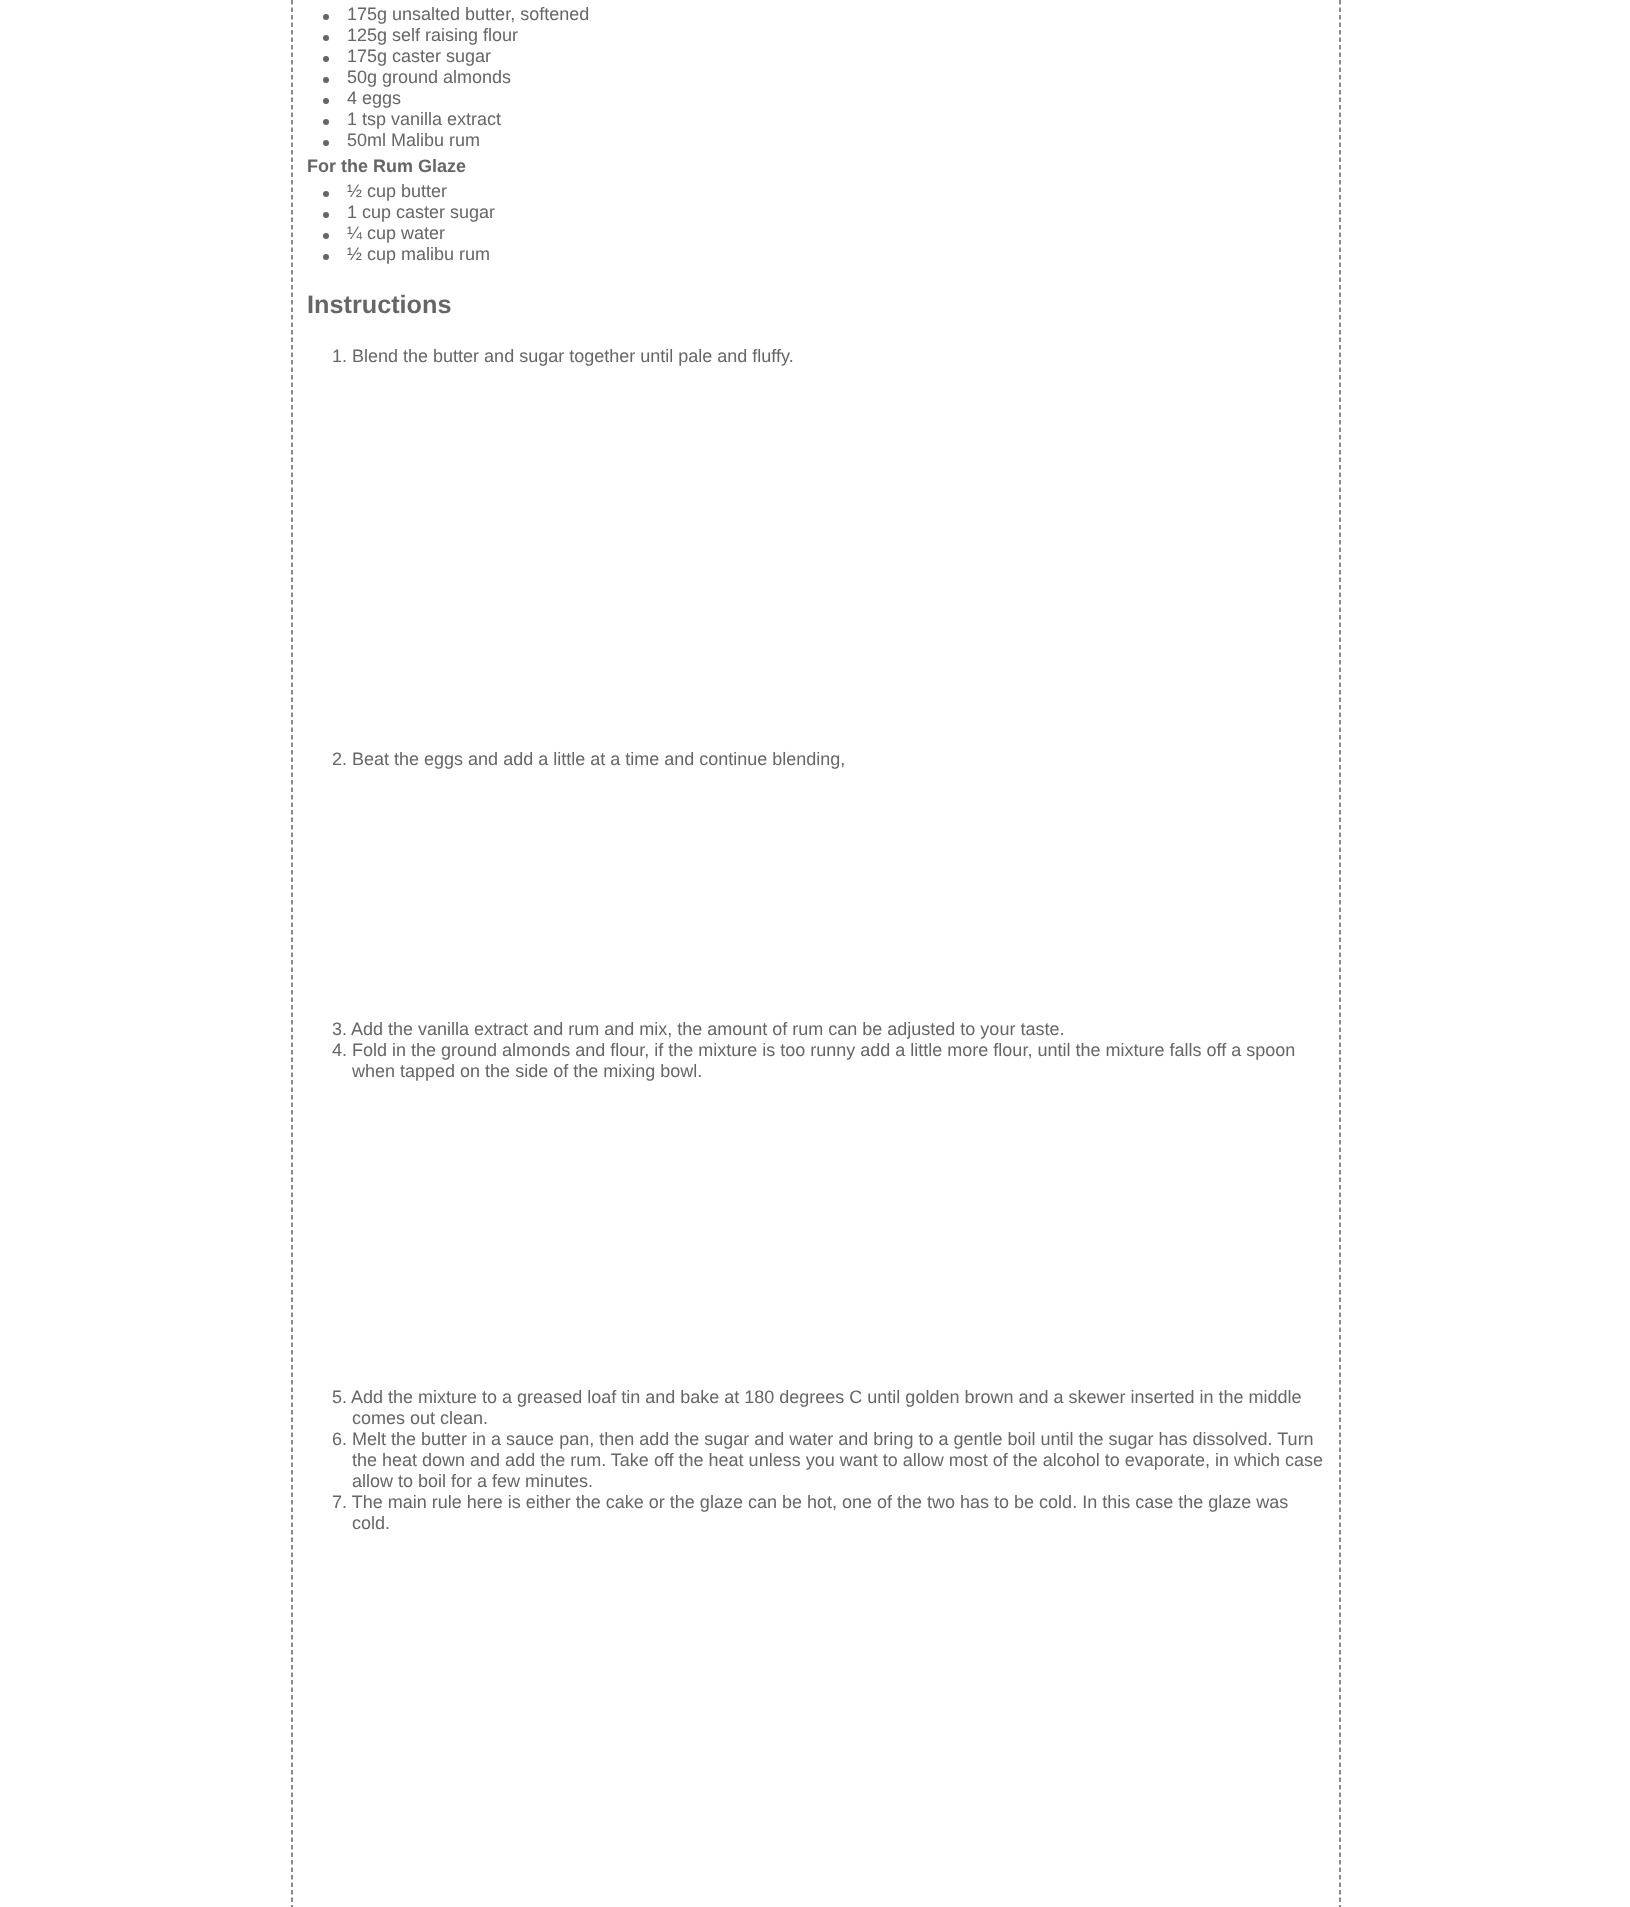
<!DOCTYPE html>
<meta charset="utf-8">
<style>body { margin: 0 } canvas { display: block }</style>
<canvas id="canvas" width="1630" height="1907"></canvas>
<script>
window.onload = function () {
    const canvas = document.getElementById('canvas');
    const context = canvas.getContext('2d');
    context.miterLimit = 4;
    context.fontKerning = 'normal';

    context.fillStyle = 'rgb(255, 255, 255)';
    context.fillRect(0, 0, 1630, 1907);
    context.beginPath();
    context.moveTo(1340, -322.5);
    context.lineTo(1340, 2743.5);
    context.strokeStyle = 'rgb(102, 102, 102)';
    context.lineWidth = 1.5;
    context.setLineDash([4.5, 3]);
    context.stroke();
    context.beginPath();
    context.moveTo(292, -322.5);
    context.lineTo(292, 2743.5);
    context.stroke();
    context.fillStyle = 'rgb(102, 102, 102)';
    context.beginPath();
    context.arc(326, 17, 3, 0, 2 * Math.PI);
    context.fill();
    context.beginPath();
    context.arc(326, 38, 3, 0, 2 * Math.PI);
    context.fill();
    context.beginPath();
    context.arc(326, 59, 3, 0, 2 * Math.PI);
    context.fill();
    context.beginPath();
    context.arc(326, 80, 3, 0, 2 * Math.PI);
    context.fill();
    context.beginPath();
    context.arc(326, 101, 3, 0, 2 * Math.PI);
    context.fill();
    context.beginPath();
    context.arc(326, 122, 3, 0, 2 * Math.PI);
    context.fill();
    context.beginPath();
    context.arc(326, 143, 3, 0, 2 * Math.PI);
    context.fill();
    context.beginPath();
    context.arc(326, 194, 3, 0, 2 * Math.PI);
    context.fill();
    context.beginPath();
    context.arc(326, 215, 3, 0, 2 * Math.PI);
    context.fill();
    context.beginPath();
    context.arc(326, 236, 3, 0, 2 * Math.PI);
    context.fill();
    context.beginPath();
    context.arc(326, 257, 3, 0, 2 * Math.PI);
    context.fill();
    context.font = '18px Liberation Sans';
    context.fillText('175g unsalted butter, softened', 347, 20);
    context.fillText('125g self raising flour', 347, 41);
    context.fillText('175g caster sugar', 347, 62);
    context.fillText('50g ground almonds', 347, 83);
    context.fillText('4 eggs', 347, 104);
    context.fillText('1 tsp vanilla extract', 347, 125);
    context.fillText('50ml Malibu rum', 347, 146);
    context.font = 'bold 18px Liberation Sans';
    context.fillText('For the Rum Glaze', 307, 172);
    context.font = '18px Liberation Sans';
    context.fillText('½ cup butter', 347, 197);
    context.fillText('1 cup caster sugar', 347, 218);
    context.fillText('¼ cup water', 347, 239);
    context.fillText('½ cup malibu rum', 347, 260);
    context.font = 'bold 25.25px Liberation Sans';
    context.fillText('Instructions', 307, 313);
    context.font = '18px Liberation Sans';
    context.fillText('1. Blend the butter and sugar together until pale and fluffy.', 332, 362);
    context.fillText('2. Beat the eggs and add a little at a time and continue blending,', 332, 765);
    context.fillText('3. Add the vanilla extract and rum and mix, the amount of rum can be adjusted to your taste.', 332, 1035);
    context.fillText('4. Fold in the ground almonds and flour, if the mixture is too runny add a little more flour, until the mixture falls off a spoon', 332, 1056);
    context.fillText('when tapped on the side of the mixing bowl.', 352, 1077);
    context.fillText('5. Add the mixture to a greased loaf tin and bake at 180 degrees C until golden brown and a skewer inserted in the middle', 332, 1403);
    context.fillText('comes out clean.', 352, 1424);
    context.fillText('6. Melt the butter in a sauce pan, then add the sugar and water and bring to a gentle boil until the sugar has dissolved. Turn', 332, 1445);
    context.fillText('the heat down and add the rum. Take off the heat unless you want to allow most of the alcohol to evaporate, in which case', 352, 1466);
    context.fillText('allow to boil for a few minutes.', 352, 1487);
    context.fillText('7. The main rule here is either the cake or the glaze can be hot, one of the two has to be cold. In this case the glaze was', 332, 1508);
    context.fillText('cold.', 352, 1529);
};
</script>
